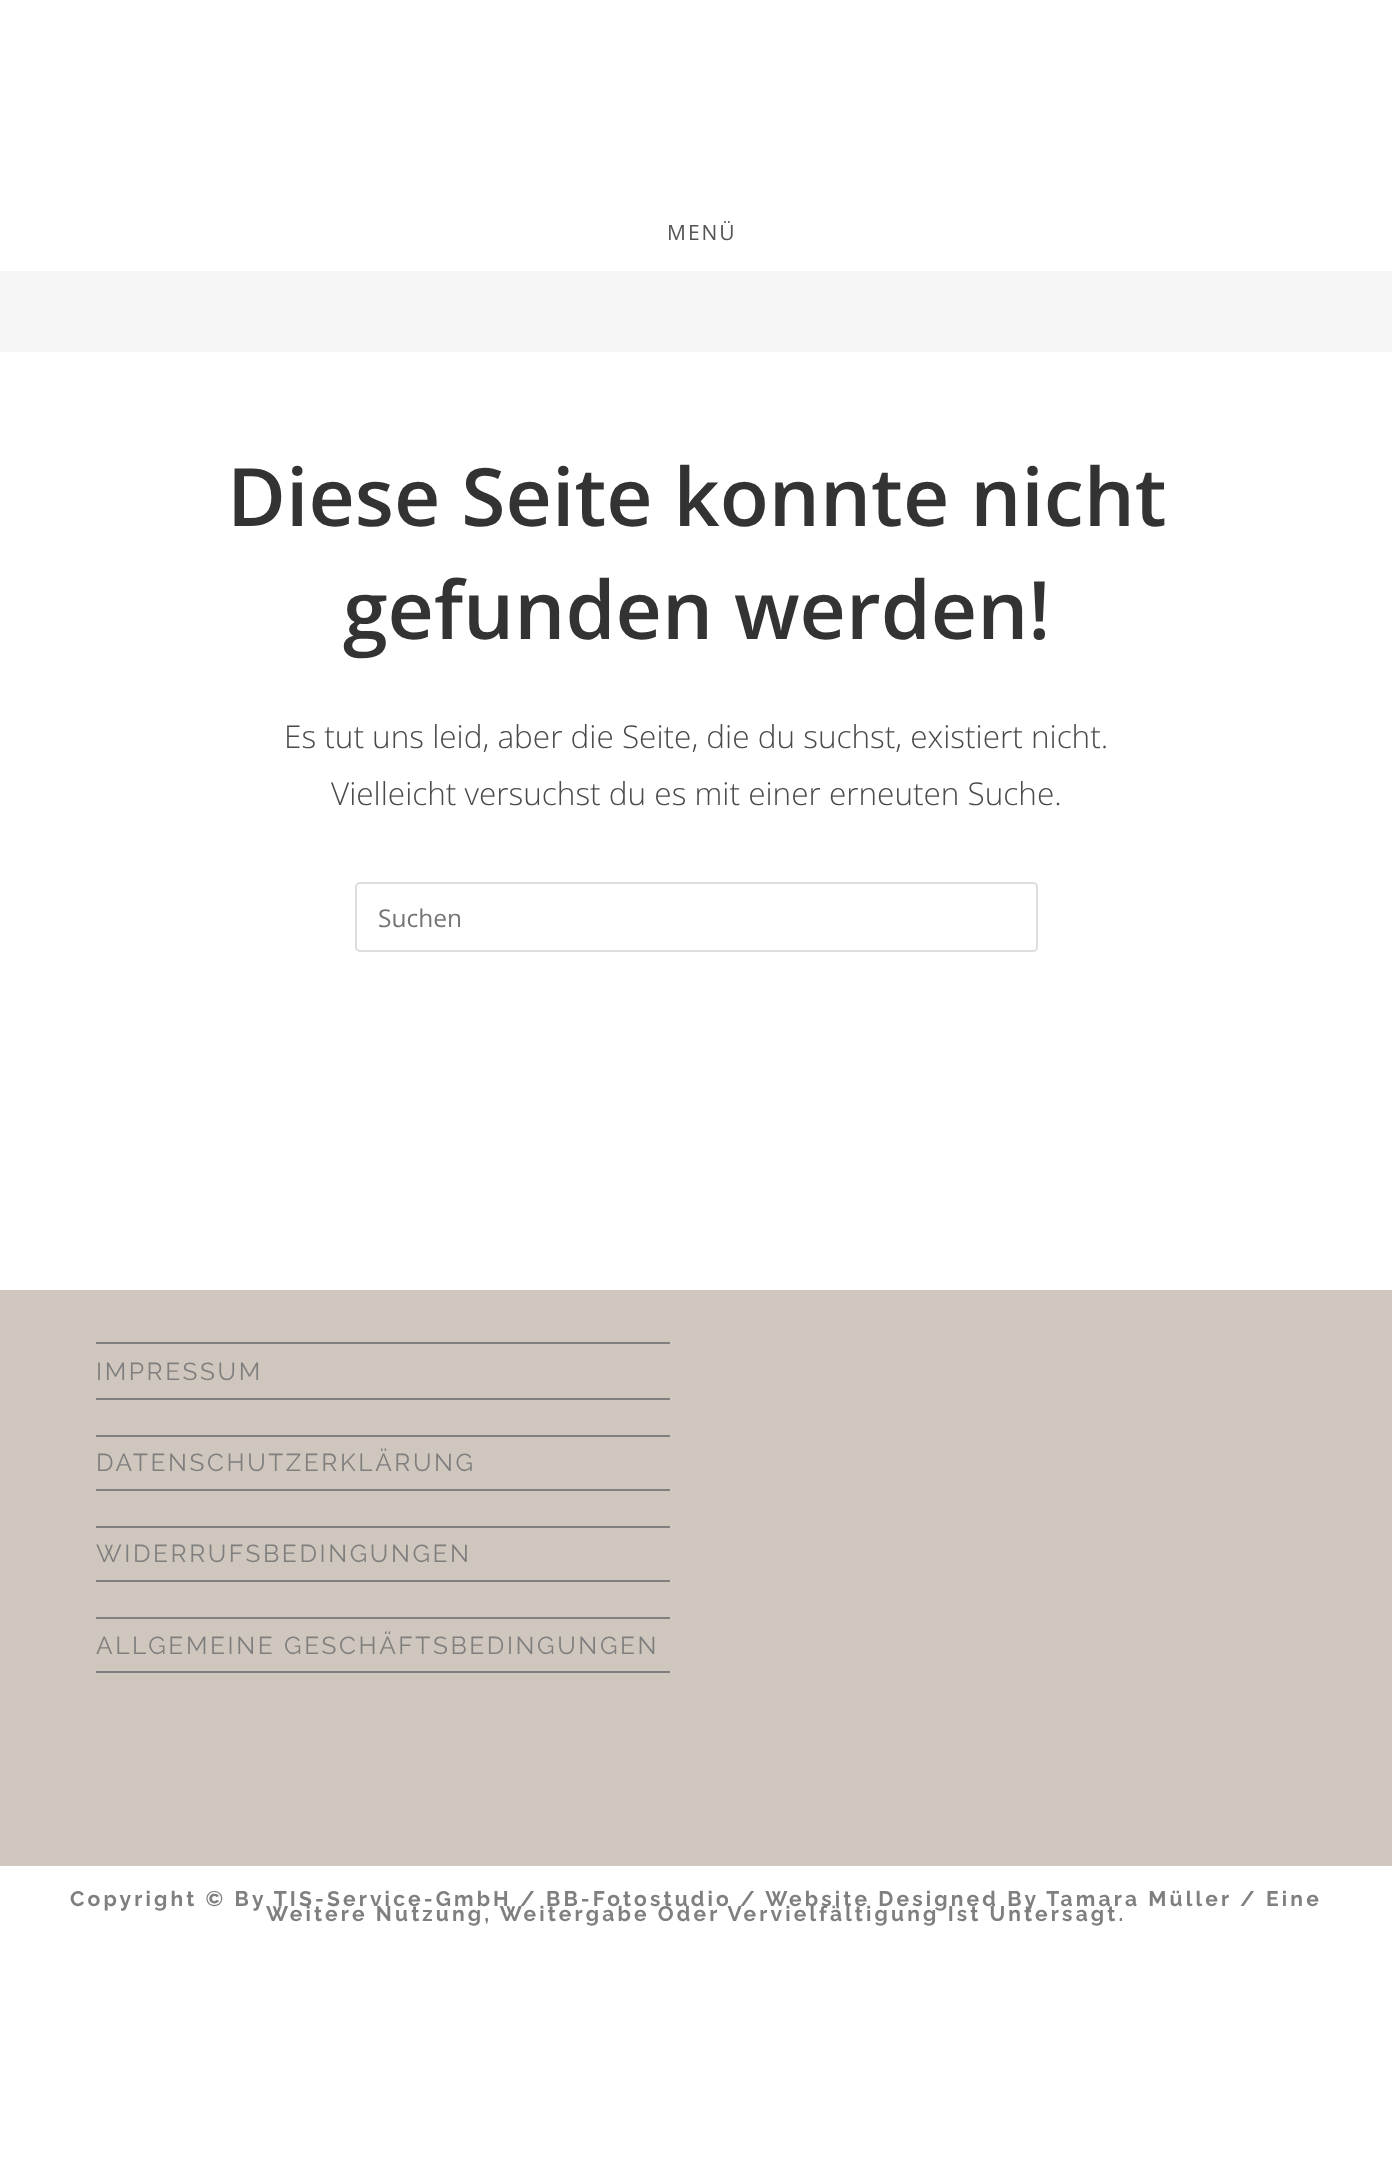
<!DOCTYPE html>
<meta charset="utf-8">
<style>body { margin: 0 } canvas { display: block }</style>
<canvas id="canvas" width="1392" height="2165"></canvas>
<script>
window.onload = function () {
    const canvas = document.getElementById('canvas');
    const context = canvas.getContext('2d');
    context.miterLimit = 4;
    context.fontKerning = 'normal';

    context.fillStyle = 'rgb(255, 255, 255)';
    context.fillRect(0, 0, 1392, 2165);
    context.fillStyle = 'rgb(245, 245, 245)';
    context.fillRect(0, 271, 1392, 81);
    context.beginPath();
    context.roundRect(356, 883, 681, 68, 4);
    context.strokeStyle = 'rgb(221, 221, 221)';
    context.lineWidth = 2;
    context.stroke();
    context.fillStyle = 'rgb(207, 199, 189)';
    context.fillRect(0, 1290, 1392, 576);
    context.fillStyle = 'rgb(127, 127, 127)';
    context.fillRect(96, 1342, 574, 2);
    context.fillRect(96, 1398, 574, 2);
    context.fillRect(96, 1435, 574, 2);
    context.fillRect(96, 1489, 574, 2);
    context.fillRect(96, 1526, 574, 2);
    context.fillRect(96, 1580, 574, 2);
    context.fillRect(96, 1617, 574, 2);
    context.fillRect(96, 1671, 574, 2);
    context.letterSpacing = '2px';
    context.font = '21px Open Sans';
    context.fillStyle = 'rgb(85, 85, 85)';
    context.fillText('MENÜ', 667, 240);
    context.letterSpacing = '0px';
    context.font = '600 80.5px Open Sans';
    context.fillStyle = 'rgb(51, 51, 51)';
    context.fillText('Diese Seite konnte nicht', 227, 526);
    context.fillText('gefunden werden!', 343, 639);
    context.font = '300 31.5px Open Sans';
    context.fillStyle = 'rgb(74, 74, 74)';
    context.fillText('Es tut uns leid, aber die Seite, die du suchst, existiert nicht.', 284, 748);
    context.fillText('Vielleicht versuchst du es mit einer erneuten Suche.', 331, 805);
    context.font = '24.5px Open Sans';
    context.fillStyle = 'rgb(117, 117, 117)';
    context.fillText('Suchen', 378, 927);
    context.letterSpacing = '2.6px';
    context.font = '24.5px Raleway';
    context.fillStyle = 'rgb(127, 127, 127)';
    context.fillText('IMPRESSUM', 96, 1380);
    context.fillText('DATENSCHUTZERKLÄRUNG', 96, 1471);
    context.fillText('WIDERRUFSBEDINGUNGEN', 96, 1562);
    context.fillText('ALLGEMEINE GESCHÄFTSBEDINGUNGEN', 96, 1654);
    context.letterSpacing = '3.15px';
    context.font = 'bold 21px Raleway';
    context.fillText('Copyright © By TIS-Service-GmbH / BB-Fotostudio / Website Designed By Tamara Müller / Eine', 70, 1906);
    context.fillText('Weitere Nutzung, Weitergabe Oder Vervielfältigung Ist Untersagt.', 266, 1921);
};
</script>
